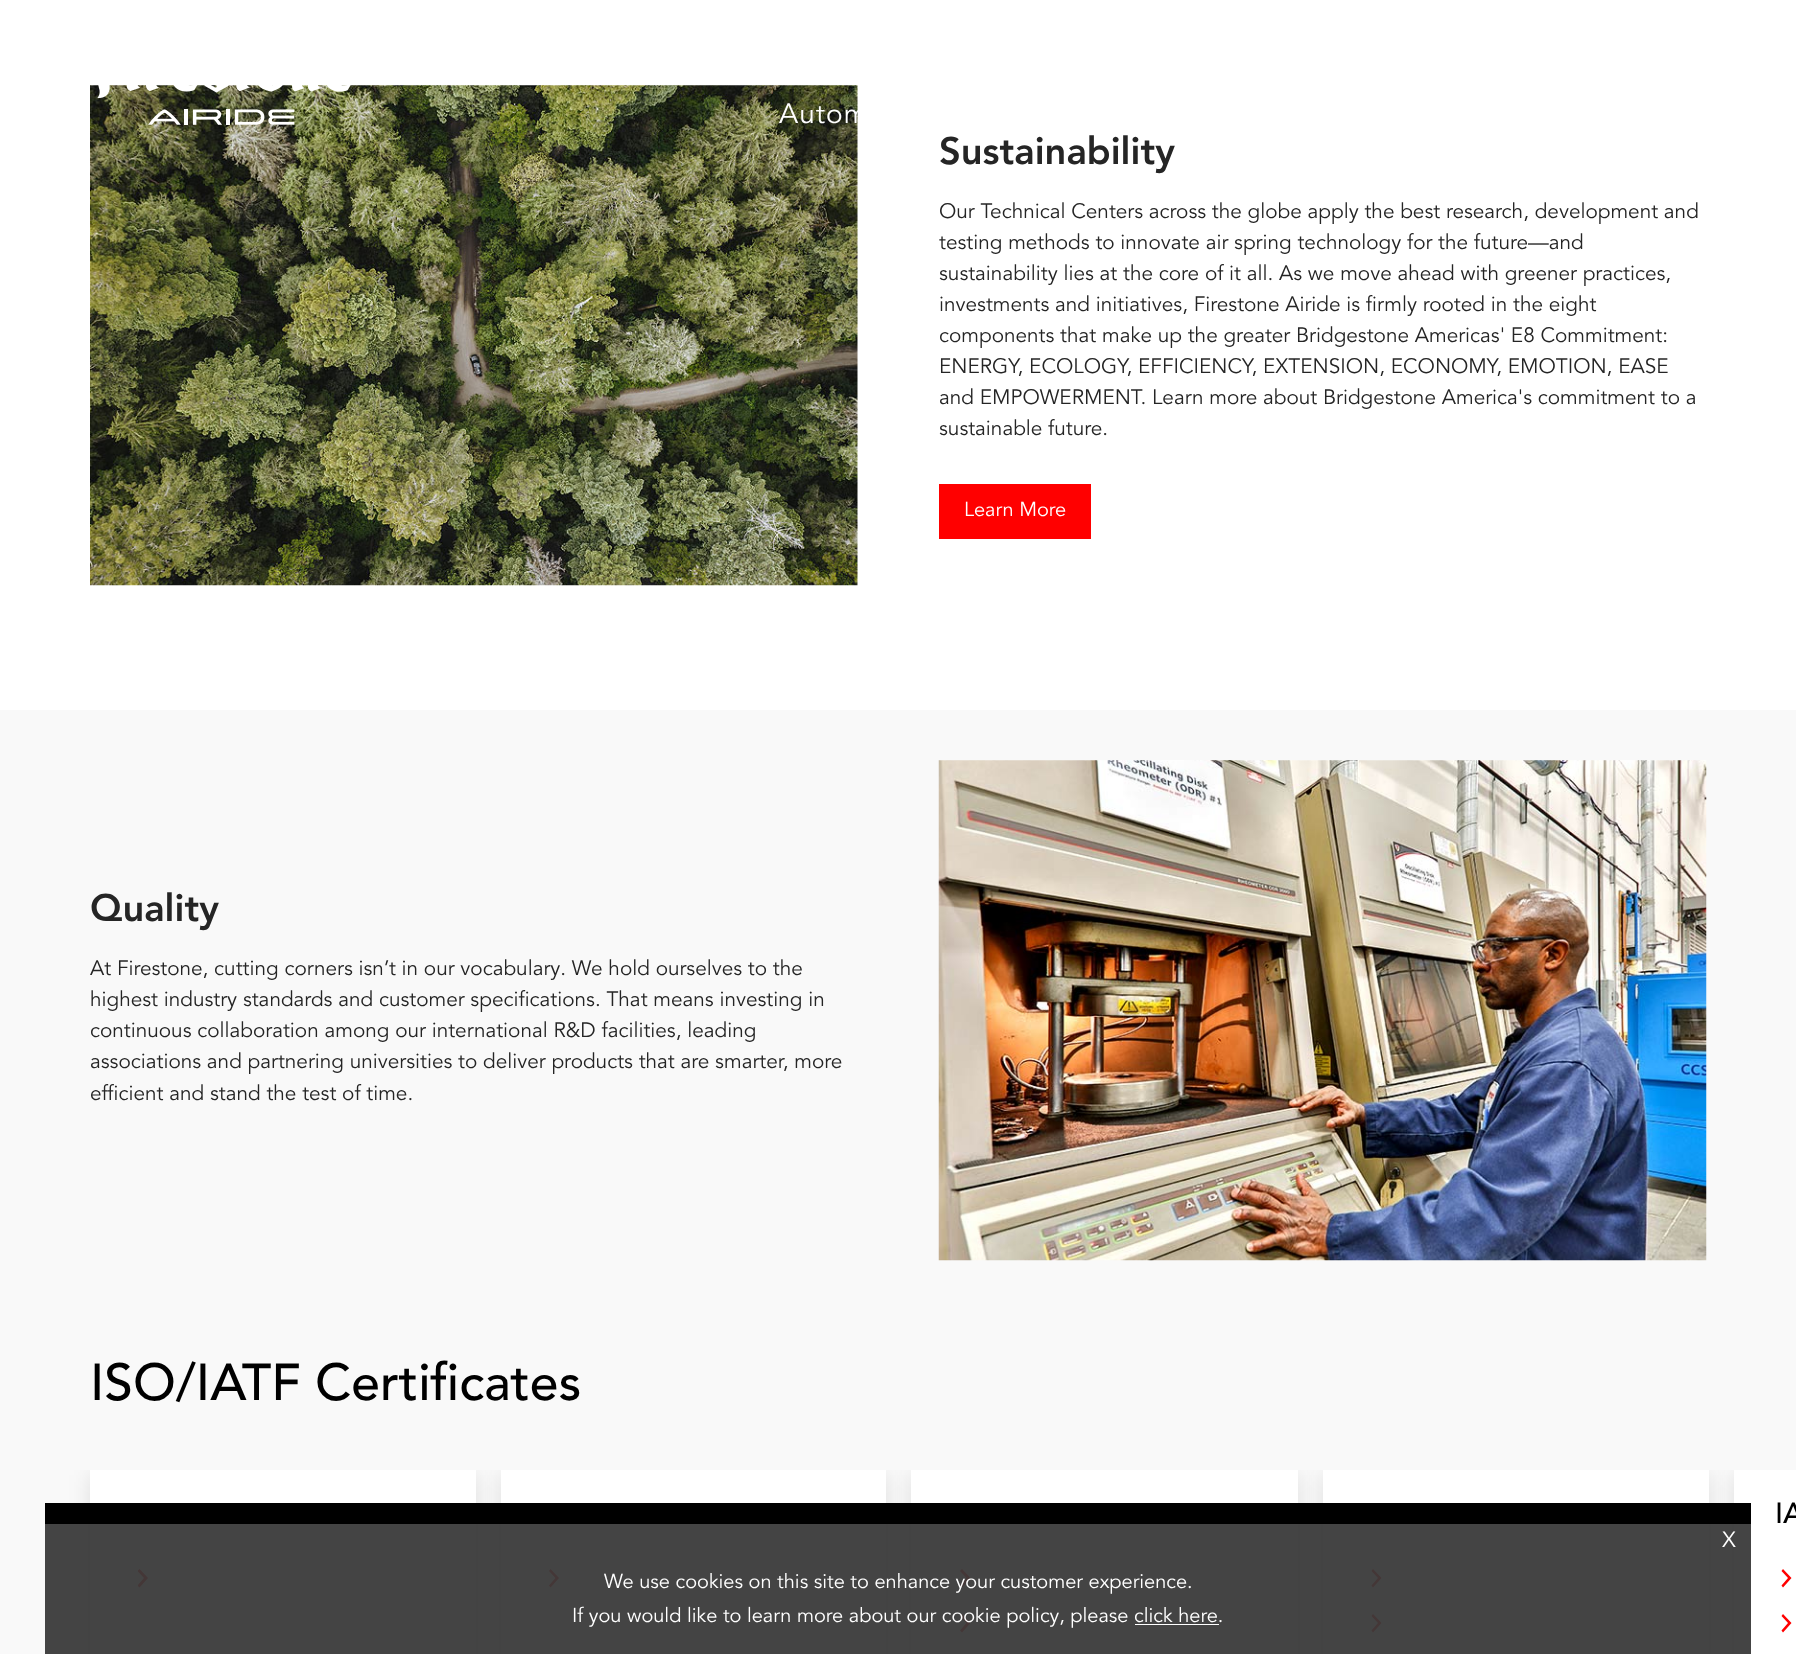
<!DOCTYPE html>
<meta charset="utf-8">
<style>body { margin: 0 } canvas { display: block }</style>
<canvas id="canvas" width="1796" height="1654"></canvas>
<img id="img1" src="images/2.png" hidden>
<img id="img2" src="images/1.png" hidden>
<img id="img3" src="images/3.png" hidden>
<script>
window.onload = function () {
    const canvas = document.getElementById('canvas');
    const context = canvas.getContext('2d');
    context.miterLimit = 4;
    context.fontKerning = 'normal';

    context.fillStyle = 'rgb(255, 255, 255)';
    context.fillRect(0, 0, 1796, 1654);
    context.drawImage(document.getElementById('img1'), 90, 85, 768, 501);
    context.drawImage(document.getElementById('img2'), 97, 85, 254, 40);
    context.fillStyle = 'rgb(255, 0, 0)';
    context.fillRect(939, 484, 152, 55);
    context.fillStyle = 'rgb(249, 249, 249)';
    context.fillRect(0, 710, 1796, 944);
    context.drawImage(document.getElementById('img3'), 938, 760, 769, 501);
    context.save();
    context.beginPath();
    context.rect(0, 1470, 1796, 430);
    context.clip();
    context.fillStyle = 'rgba(0, 0, 0, 0.1)';
    context.filter = 'blur(10.5px)';
    context.beginPath();
    context.rect(90, 1475, 386, 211);
    context.fill();
    context.filter = 'none';
    context.restore();
    context.fillStyle = 'rgb(255, 255, 255)';
    context.fillRect(90, 1470, 386, 184);
    context.save();
    context.beginPath();
    context.rect(138, 1569, 11, 19);
    context.clip();
    context.fillStyle = 'rgb(255, 0, 0)';
    context.beginPath();
    context.moveTo(137.5, 1585.5);
    context.lineTo(139.5, 1587.5);
    context.lineTo(148, 1578);
    context.lineTo(139.5, 1569);
    context.lineTo(137.5, 1571);
    context.lineTo(144, 1578);
    context.closePath();
    context.fill();
    context.restore();
    context.save();
    context.beginPath();
    context.rect(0, 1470, 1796, 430);
    context.clip();
    context.fillStyle = 'rgba(0, 0, 0, 0.1)';
    context.filter = 'blur(10.5px)';
    context.beginPath();
    context.rect(501, 1475, 385, 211);
    context.fill();
    context.filter = 'none';
    context.restore();
    context.fillRect(501, 1470, 385, 184);
    context.fillStyle = 'rgb(255, 0, 0)';
    context.beginPath();
    context.moveTo(549, 1585.5);
    context.lineTo(550.5, 1587.5);
    context.lineTo(559, 1578);
    context.lineTo(550.5, 1569);
    context.lineTo(549, 1571);
    context.lineTo(555.5, 1578);
    context.closePath();
    context.fill();
    context.save();
    context.beginPath();
    context.rect(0, 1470, 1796, 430);
    context.clip();
    context.fillStyle = 'rgba(0, 0, 0, 0.1)';
    context.filter = 'blur(10.5px)';
    context.beginPath();
    context.rect(911, 1475, 387, 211);
    context.fill();
    context.filter = 'none';
    context.restore();
    context.fillStyle = 'rgb(255, 255, 255)';
    context.fillRect(911, 1470, 387, 184);
    context.fillStyle = 'rgb(255, 0, 0)';
    context.beginPath();
    context.moveTo(960, 1585.5);
    context.lineTo(962, 1587.5);
    context.lineTo(970.5, 1578);
    context.lineTo(962, 1569);
    context.lineTo(960, 1571);
    context.lineTo(966.5, 1578);
    context.closePath();
    context.fill();
    context.beginPath();
    context.moveTo(960, 1630.5);
    context.lineTo(962, 1632.5);
    context.lineTo(970.5, 1623);
    context.lineTo(962, 1614);
    context.lineTo(960, 1616);
    context.lineTo(966.5, 1623);
    context.closePath();
    context.fill();
    context.save();
    context.beginPath();
    context.rect(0, 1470, 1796, 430);
    context.clip();
    context.fillStyle = 'rgba(0, 0, 0, 0.1)';
    context.filter = 'blur(10.5px)';
    context.beginPath();
    context.rect(1323, 1475, 386, 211);
    context.fill();
    context.filter = 'none';
    context.restore();
    context.fillStyle = 'rgb(255, 255, 255)';
    context.fillRect(1323, 1470, 386, 184);
    context.fillStyle = 'rgb(255, 0, 0)';
    context.beginPath();
    context.moveTo(1371.5, 1585.5);
    context.lineTo(1373, 1587.5);
    context.lineTo(1381.5, 1578);
    context.lineTo(1373, 1569);
    context.lineTo(1371.5, 1571);
    context.lineTo(1378, 1578);
    context.closePath();
    context.fill();
    context.beginPath();
    context.moveTo(1371.5, 1630.5);
    context.lineTo(1373, 1632.5);
    context.lineTo(1381.5, 1623);
    context.lineTo(1373, 1614);
    context.lineTo(1371.5, 1616);
    context.lineTo(1378, 1623);
    context.closePath();
    context.fill();
    context.save();
    context.beginPath();
    context.rect(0, 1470, 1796, 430);
    context.clip();
    context.fillStyle = 'rgba(0, 0, 0, 0.1)';
    context.filter = 'blur(10.5px)';
    context.beginPath();
    context.rect(1734, 1475, 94, 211);
    context.fill();
    context.filter = 'none';
    context.restore();
    context.fillStyle = 'rgb(255, 255, 255)';
    context.fillRect(1734, 1470, 62, 184);
    context.fillStyle = 'rgb(255, 0, 0)';
    context.beginPath();
    context.moveTo(1781.5, 1585.5);
    context.lineTo(1783, 1587.5);
    context.lineTo(1791.5, 1578);
    context.lineTo(1783, 1569);
    context.lineTo(1781.5, 1571);
    context.lineTo(1788, 1578);
    context.closePath();
    context.fill();
    context.beginPath();
    context.moveTo(1781.5, 1630.5);
    context.lineTo(1783, 1632.5);
    context.lineTo(1791.5, 1623);
    context.lineTo(1783, 1614);
    context.lineTo(1781.5, 1616);
    context.lineTo(1788, 1623);
    context.closePath();
    context.fill();
    context.fillStyle = 'rgba(58, 58, 58, 0.95)';
    context.fillRect(45, 1524, 1706, 130);
    context.fillStyle = 'rgb(0, 0, 0)';
    context.fillRect(45, 1503, 1706, 21);
    context.fillStyle = 'rgb(255, 255, 255)';
    context.fillRect(1135, 1624, 84, 1);
    context.letterSpacing = '1px';
    context.font = '28px Avenir';
    context.fillText('Autom', 779, 123);
    context.letterSpacing = '0px';
    context.font = '900 38px Avenir';
    context.fillStyle = 'rgb(37, 37, 37)';
    context.fillText('Sustainability', 939, 164);
    context.font = '20.75px Avenir';
    context.fillText('Our Technical Centers across the globe apply the best research, development and', 939, 218);
    context.fillText('testing methods to innovate air spring technology for the future—and', 939, 249);
    context.fillText('sustainability lies at the core of it all. As we move ahead with greener practices,', 939, 280);
    context.fillText('investments and initiatives, Firestone Airide is firmly rooted in the eight', 939, 311);
    context.fillText('components that make up the greater Bridgestone Americas\' E8 Commitment:', 939, 342);
    context.fillText('ENERGY, ECOLOGY, EFFICIENCY, EXTENSION, ECONOMY, EMOTION, EASE', 939, 373);
    context.fillText('and EMPOWERMENT. Learn more about Bridgestone America\'s commitment to a', 939, 404);
    context.fillText('sustainable future.', 939, 435);
    context.font = '20px Avenir';
    context.fillStyle = 'rgb(255, 255, 255)';
    context.fillText('Learn More', 964, 516);
    context.font = '900 38px Avenir';
    context.fillStyle = 'rgb(37, 37, 37)';
    context.fillText('Quality', 90, 921);
    context.font = '20.75px Avenir';
    context.fillText('At Firestone, cutting corners isn’t in our vocabulary. We hold ourselves to the', 90, 975);
    context.fillText('highest industry standards and customer specifications. That means investing in', 90, 1006);
    context.fillText('continuous collaboration among our international R&D facilities, leading', 90, 1037);
    context.fillText('associations and partnering universities to deliver products that are smarter, more', 90, 1068);
    context.fillText('efficient and stand the test of time.', 90, 1100);
    context.font = '500 51.5px Avenir';
    context.fillStyle = 'rgb(0, 0, 0)';
    context.fillText('ISO/IATF Certificates', 90, 1400);
    context.font = '500 29px Avenir';
    context.fillText('IA', 1775, 1523);
    context.font = '22px Avenir';
    context.fillStyle = 'rgb(255, 255, 255)';
    context.fillText('X', 1722, 1547);
    context.font = '20px Avenir';
    context.fillText('We use cookies on this site to enhance your customer experience.', 604, 1588);
    context.fillText('If you would like to learn more about our cookie policy, please click here.', 572, 1622);
};
</script>
